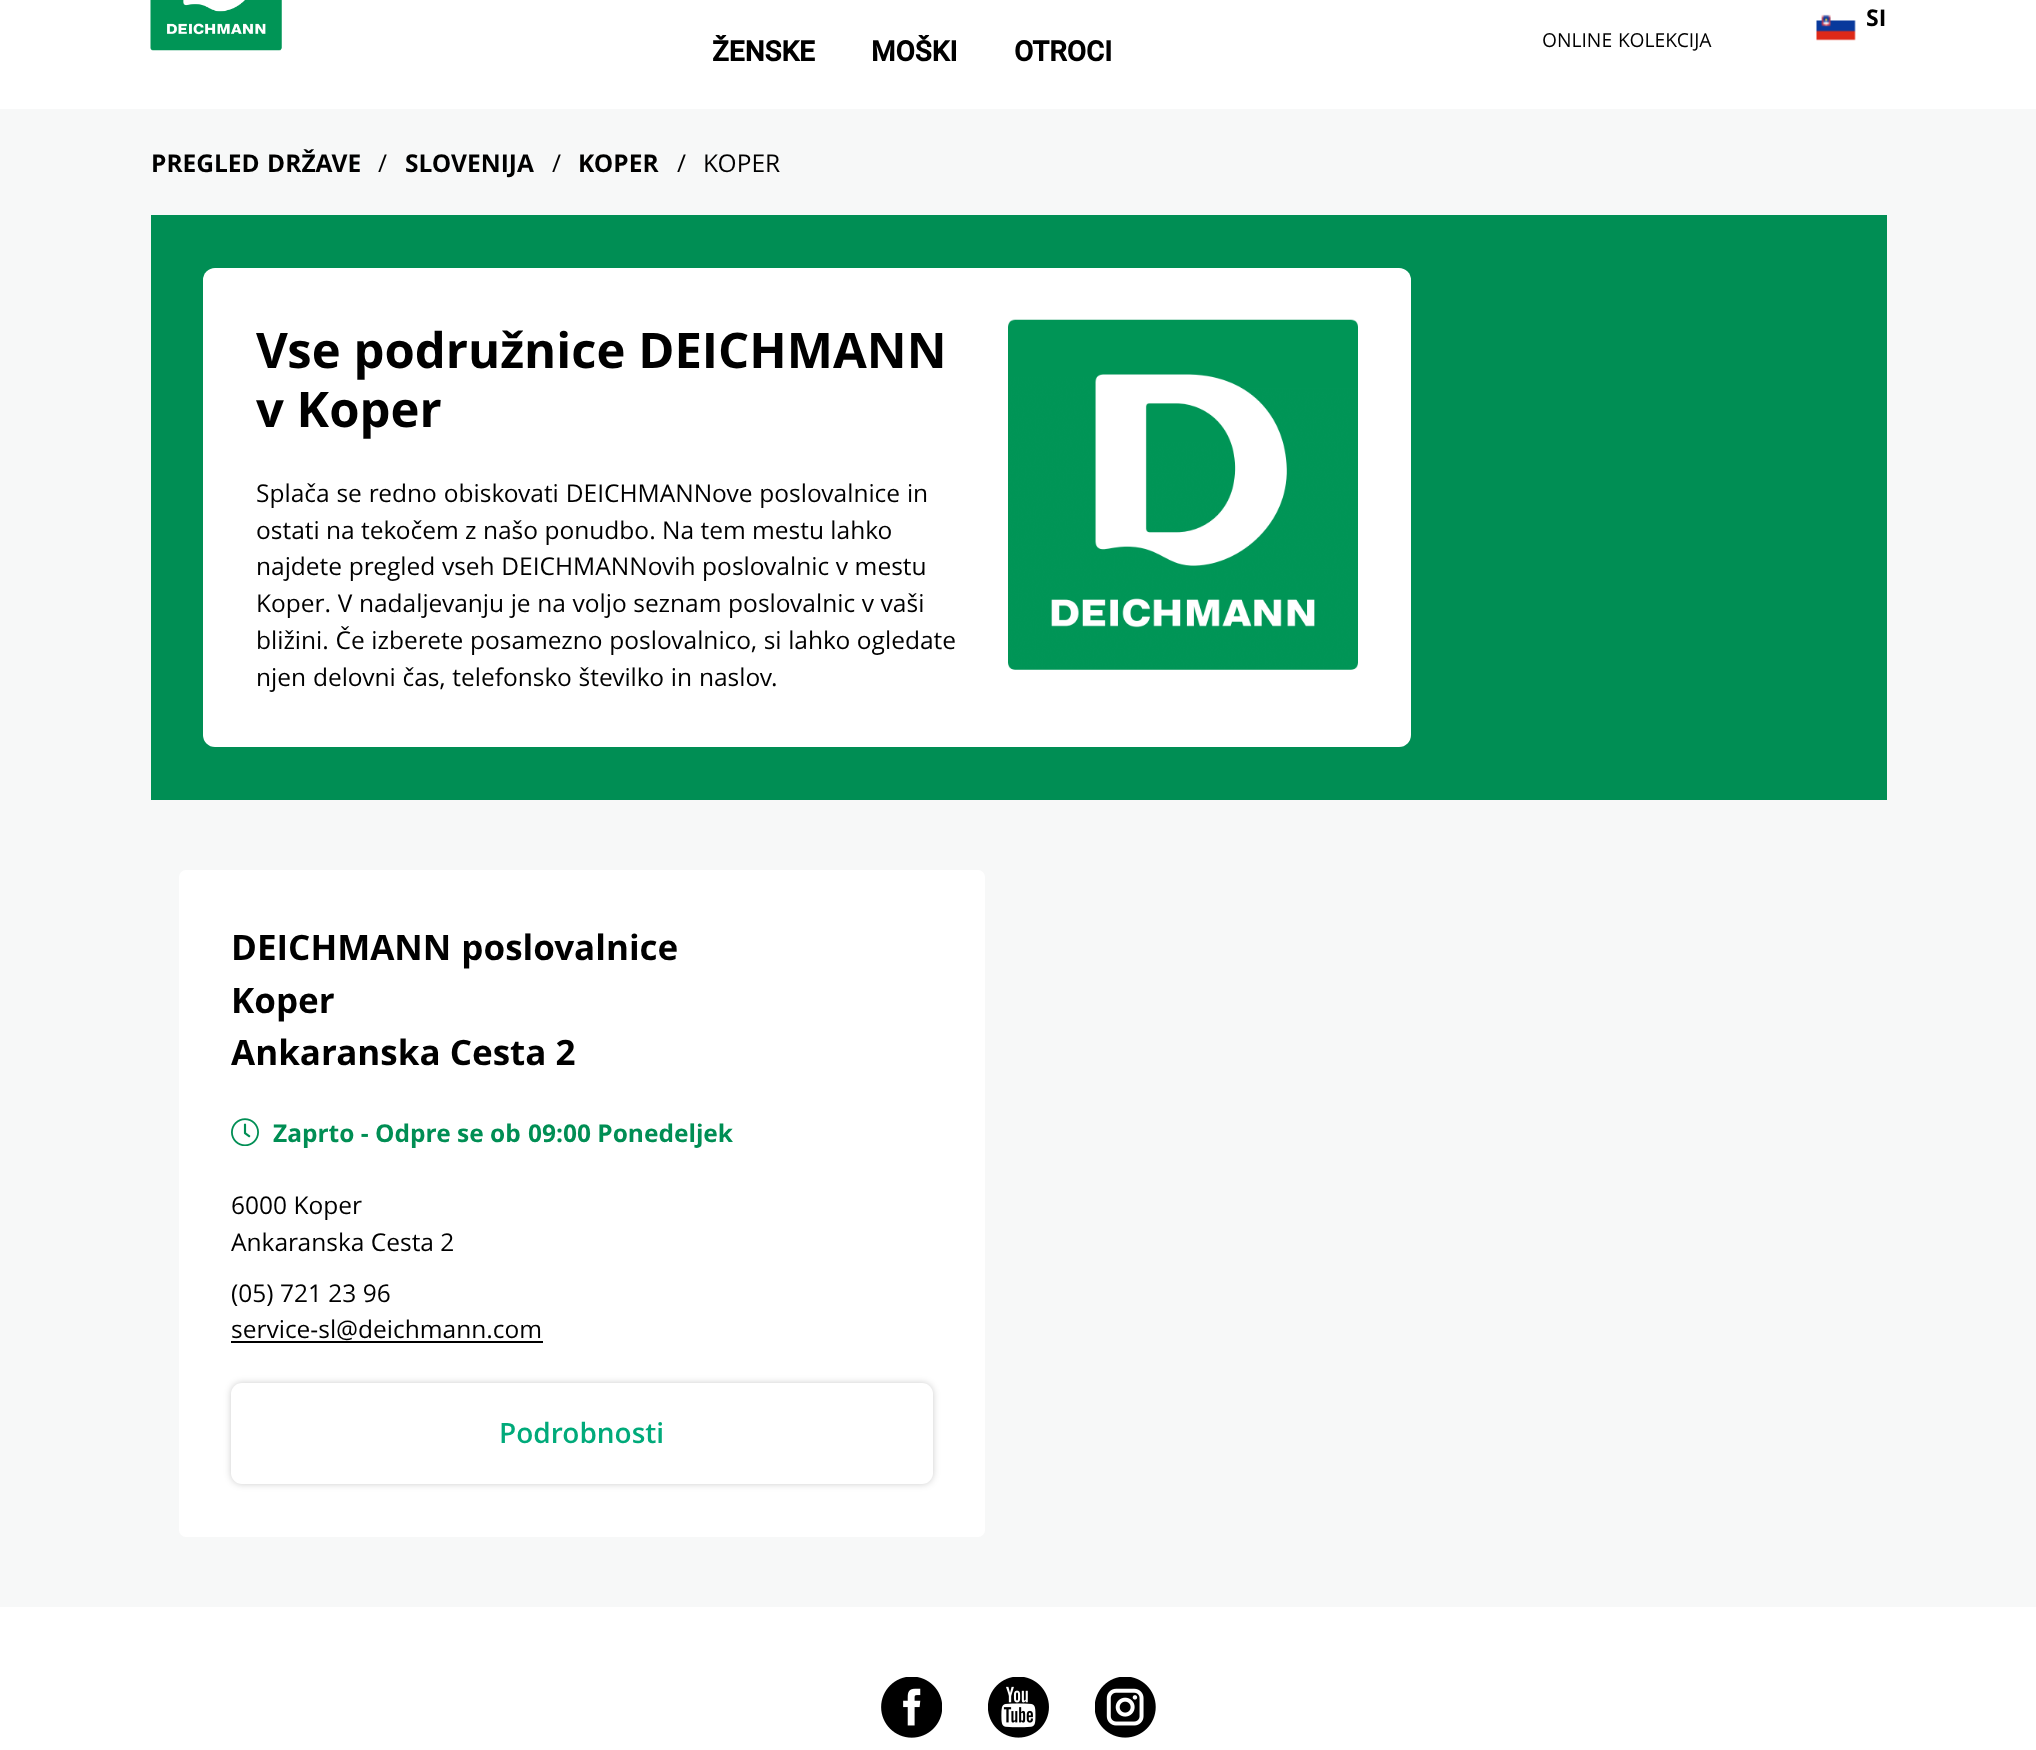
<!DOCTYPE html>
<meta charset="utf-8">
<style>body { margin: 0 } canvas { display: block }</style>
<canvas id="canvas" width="2036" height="1750"></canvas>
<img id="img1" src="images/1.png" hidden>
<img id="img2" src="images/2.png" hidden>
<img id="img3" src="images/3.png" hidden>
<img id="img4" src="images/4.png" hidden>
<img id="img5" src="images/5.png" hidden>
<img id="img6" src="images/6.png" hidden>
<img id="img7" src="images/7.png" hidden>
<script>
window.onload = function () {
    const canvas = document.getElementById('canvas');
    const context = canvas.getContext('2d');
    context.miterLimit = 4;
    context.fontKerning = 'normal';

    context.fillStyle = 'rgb(255, 255, 255)';
    context.fillRect(0, 0, 2036, 1750);
    context.drawImage(document.getElementById('img1'), 150, 0, 132, 51);
    context.drawImage(document.getElementById('img2'), 1816, 14, 40, 27);
    context.fillStyle = 'rgb(247, 248, 248)';
    context.fillRect(0, 109, 2036, 1498);
    context.fillStyle = 'rgb(0, 142, 84)';
    context.fillRect(151, 215, 1736, 585);
    context.fillStyle = 'rgb(255, 255, 255)';
    context.beginPath();
    context.roundRect(203, 268, 1208, 479, 12);
    context.fill();
    context.drawImage(document.getElementById('img3'), 1008, 319, 350, 351);
    context.beginPath();
    context.roundRect(179, 870, 806, 667, 7);
    context.fill();
    context.drawImage(document.getElementById('img4'), 231, 1118, 28, 28);
    context.fillStyle = 'rgb(0, 0, 0)';
    context.fillRect(231, 1341, 312, 2);
    context.fillStyle = 'rgba(0, 0, 0, 0.2)';
    context.filter = 'blur(3.5px)';
    context.beginPath();
    context.roundRect(231, 1383, 702, 101, 11);
    context.fill();
    context.filter = 'none';
    context.fillStyle = 'rgb(255, 255, 255)';
    context.beginPath();
    context.roundRect(231, 1383, 702, 101, 11);
    context.fill();
    context.drawImage(document.getElementById('img5'), 881, 1677, 61, 61);
    context.drawImage(document.getElementById('img6'), 988, 1677, 61, 61);
    context.drawImage(document.getElementById('img7'), 1095, 1677, 61, 61);
    context.font = 'bold 28px Roboto';
    context.fillStyle = 'rgb(0, 0, 0)';
    context.fillText('ŽENSKE', 712, 61);
    context.fillText('MOŠKI', 871, 61);
    context.fillText('OTROCI', 1014, 61);
    context.font = 'bold 23px Open Sans';
    context.fillText('SI', 1866, 26);
    context.wordSpacing = '1px';
    context.font = '19.25px Open Sans';
    context.fillText('ONLINE KOLEKCIJA', 1542, 47);
    context.font = 'bold 24.5px Open Sans';
    context.fillText('PREGLED DRŽAVE', 151, 172);
    context.wordSpacing = '0px';
    context.font = '24.5px Open Sans';
    context.fillText('/', 378, 172);
    context.font = 'bold 24.5px Open Sans';
    context.fillText('SLOVENIJA', 405, 172);
    context.font = '24.5px Open Sans';
    context.fillText('/', 552, 172);
    context.font = 'bold 24.5px Open Sans';
    context.fillText('KOPER', 578, 172);
    context.font = '24.5px Open Sans';
    context.fillText('/', 677, 172);
    context.fillText('KOPER', 703, 172);
    context.font = 'bold 49px Open Sans';
    context.fillText('Vse podružnice DEICHMANN', 256, 368);
    context.fillText('v Koper', 256, 427);
    context.wordSpacing = '0.5px';
    context.font = '24.5px Open Sans';
    context.fillText('Splača se redno obiskovati DEICHMANNove poslovalnice in', 256, 502);
    context.wordSpacing = '0px';
    context.fillText('ostati na tekočem z našo ponudbo. Na tem mestu lahko', 256, 539);
    context.wordSpacing = '0.25px';
    context.fillText('najdete pregled vseh DEICHMANNovih poslovalnic v mestu', 256, 575);
    context.fillText('Koper. V nadaljevanju je na voljo seznam poslovalnic v vaši', 256, 612);
    context.fillText('bližini. Če izberete posamezno poslovalnico, si lahko ogledate', 256, 649);
    context.wordSpacing = '0.5px';
    context.fillText('njen delovni čas, telefonsko številko in naslov.', 256, 686);
    context.wordSpacing = '1px';
    context.font = 'bold 35px Open Sans';
    context.fillText('DEICHMANN poslovalnice', 231, 960);
    context.wordSpacing = '0px';
    context.fillText('Koper', 231, 1013);
    context.fillText('Ankaranska Cesta 2', 231, 1065);
    context.font = 'bold 24.5px Open Sans';
    context.fillStyle = 'rgb(0, 142, 84)';
    context.fillText('Zaprto - Odpre se ob', 273, 1142);
    context.fillText('09:00 Ponedeljek', 528, 1142);
    context.font = '24.5px Open Sans';
    context.fillStyle = 'rgb(0, 0, 0)';
    context.fillText('6000 Koper', 231, 1214);
    context.fillText('Ankaranska Cesta 2', 231, 1251);
    context.fillText('(05) 721 23 96', 231, 1302);
    context.fillText('service-sl@deichmann.com', 231, 1338);
    context.font = '600 28px Open Sans';
    context.fillStyle = 'rgb(0, 170, 122)';
    context.fillText('Podrobnosti', 499, 1443);
};
</script>
